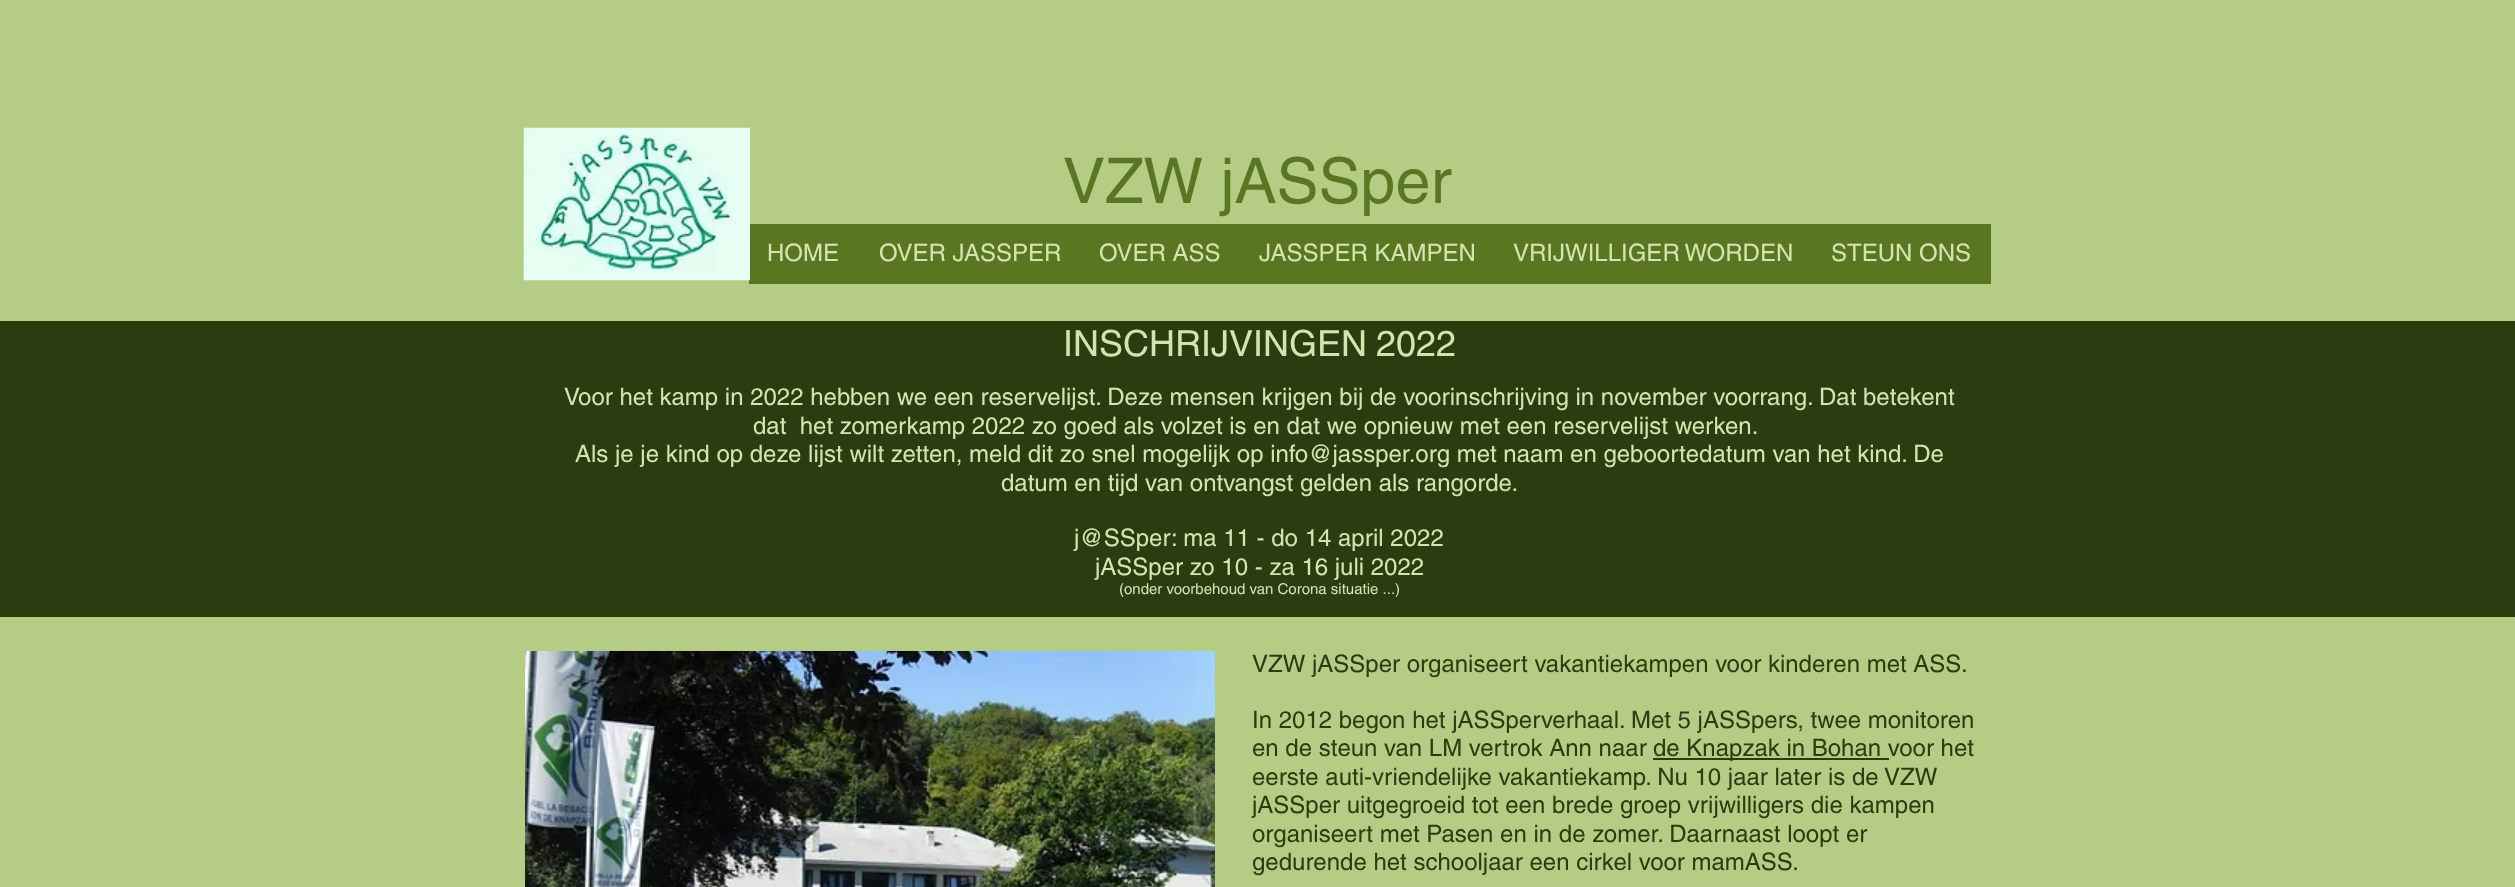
<!DOCTYPE html>
<meta charset="utf-8">
<style>body { margin: 0 } canvas { display: block }</style>
<canvas id="canvas" width="2515" height="887"></canvas>
<img id="img1" src="images/1.png" hidden>
<img id="img2" src="images/2.png" hidden>
<script>
window.onload = function () {
    const canvas = document.getElementById('canvas');
    const context = canvas.getContext('2d');
    context.miterLimit = 4;
    context.fontKerning = 'normal';

    context.fillStyle = 'rgb(180, 204, 132)';
    context.fillRect(0, 0, 2515, 887);
    context.fillStyle = 'rgb(91, 118, 35)';
    context.fillRect(749, 224, 1242, 60);
    context.drawImage(document.getElementById('img1'), 523, 127, 227, 154);
    context.fillStyle = 'rgb(45, 59, 17)';
    context.fillRect(0, 321, 2515, 296);
    context.drawImage(document.getElementById('img2'), 525, 651, 690, 236);
    context.fillRect(1653, 758, 236, 2);
    context.font = '63px helvetica';
    context.fillStyle = 'rgb(91, 118, 35)';
    context.fillText('VZW jASSper', 1063, 203);
    context.font = '24px helvetica';
    context.fillStyle = 'rgb(211, 229, 175)';
    context.fillText('HOME', 767, 261);
    context.fillText('OVER JASSPER', 879, 261);
    context.fillText('OVER ASS', 1099, 261);
    context.fillText('JASSPER KAMPEN', 1259, 261);
    context.wordSpacing = '-1px';
    context.fillText('VRIJWILLIGER WORDEN', 1513, 261);
    context.wordSpacing = '0px';
    context.fillText('STEUN ONS', 1831, 261);
    context.wordSpacing = '-1px';
    context.font = '36px helvetica';
    context.fillText('INSCHRIJVINGEN 2022', 1063, 356);
    context.wordSpacing = '0px';
    context.font = '24px helvetica';
    context.fillText('Voor het kamp in 2022 hebben we een reservelijst. Deze mensen krijgen bij de voorinschrijving in november voorrang. Dat betekent', 564, 405);
    context.fillText('dat  het zomerkamp 2022 zo goed als volzet is en dat we opnieuw met een reservelijst werken.', 753, 434);
    context.fillText('Als je je kind op deze lijst wilt zetten, meld dit zo snel mogelijk op info@jassper.org met naam en geboortedatum van het kind. De', 575, 462);
    context.fillText('datum en tijd van ontvangst gelden als rangorde.', 1001, 491);
    context.fillText('j@SSper: ma 11 - do 14 april 2022', 1074, 546);
    context.fillText('jASSper zo 10 - za 16 juli 2022', 1095, 575);
    context.font = '15px helvetica';
    context.fillText('(onder voorbehoud van Corona situatie ...)', 1119, 594);
    context.font = '24px helvetica';
    context.fillStyle = 'rgb(45, 59, 17)';
    context.fillText('VZW jASSper organiseert vakantiekampen voor kinderen met ASS.', 1252, 672);
    context.fillText('In 2012 begon het jASSperverhaal. Met 5 jASSpers, twee monitoren', 1252, 728);
    context.fillText('en de steun van LM vertrok Ann naar', 1252, 756);
    context.fillText('de Knapzak in Bohan voor het', 1653, 756);
    context.fillText('eerste auti-vriendelijke vakantiekamp. Nu 10 jaar later is de VZW', 1252, 785);
    context.fillText('jASSper uitgegroeid tot een brede groep vrijwilligers die kampen', 1252, 813);
    context.fillText('organiseert met Pasen en in de zomer. Daarnaast loopt er', 1252, 842);
    context.fillText('gedurende het schooljaar een cirkel voor mamASS.', 1252, 870);
};
</script>
